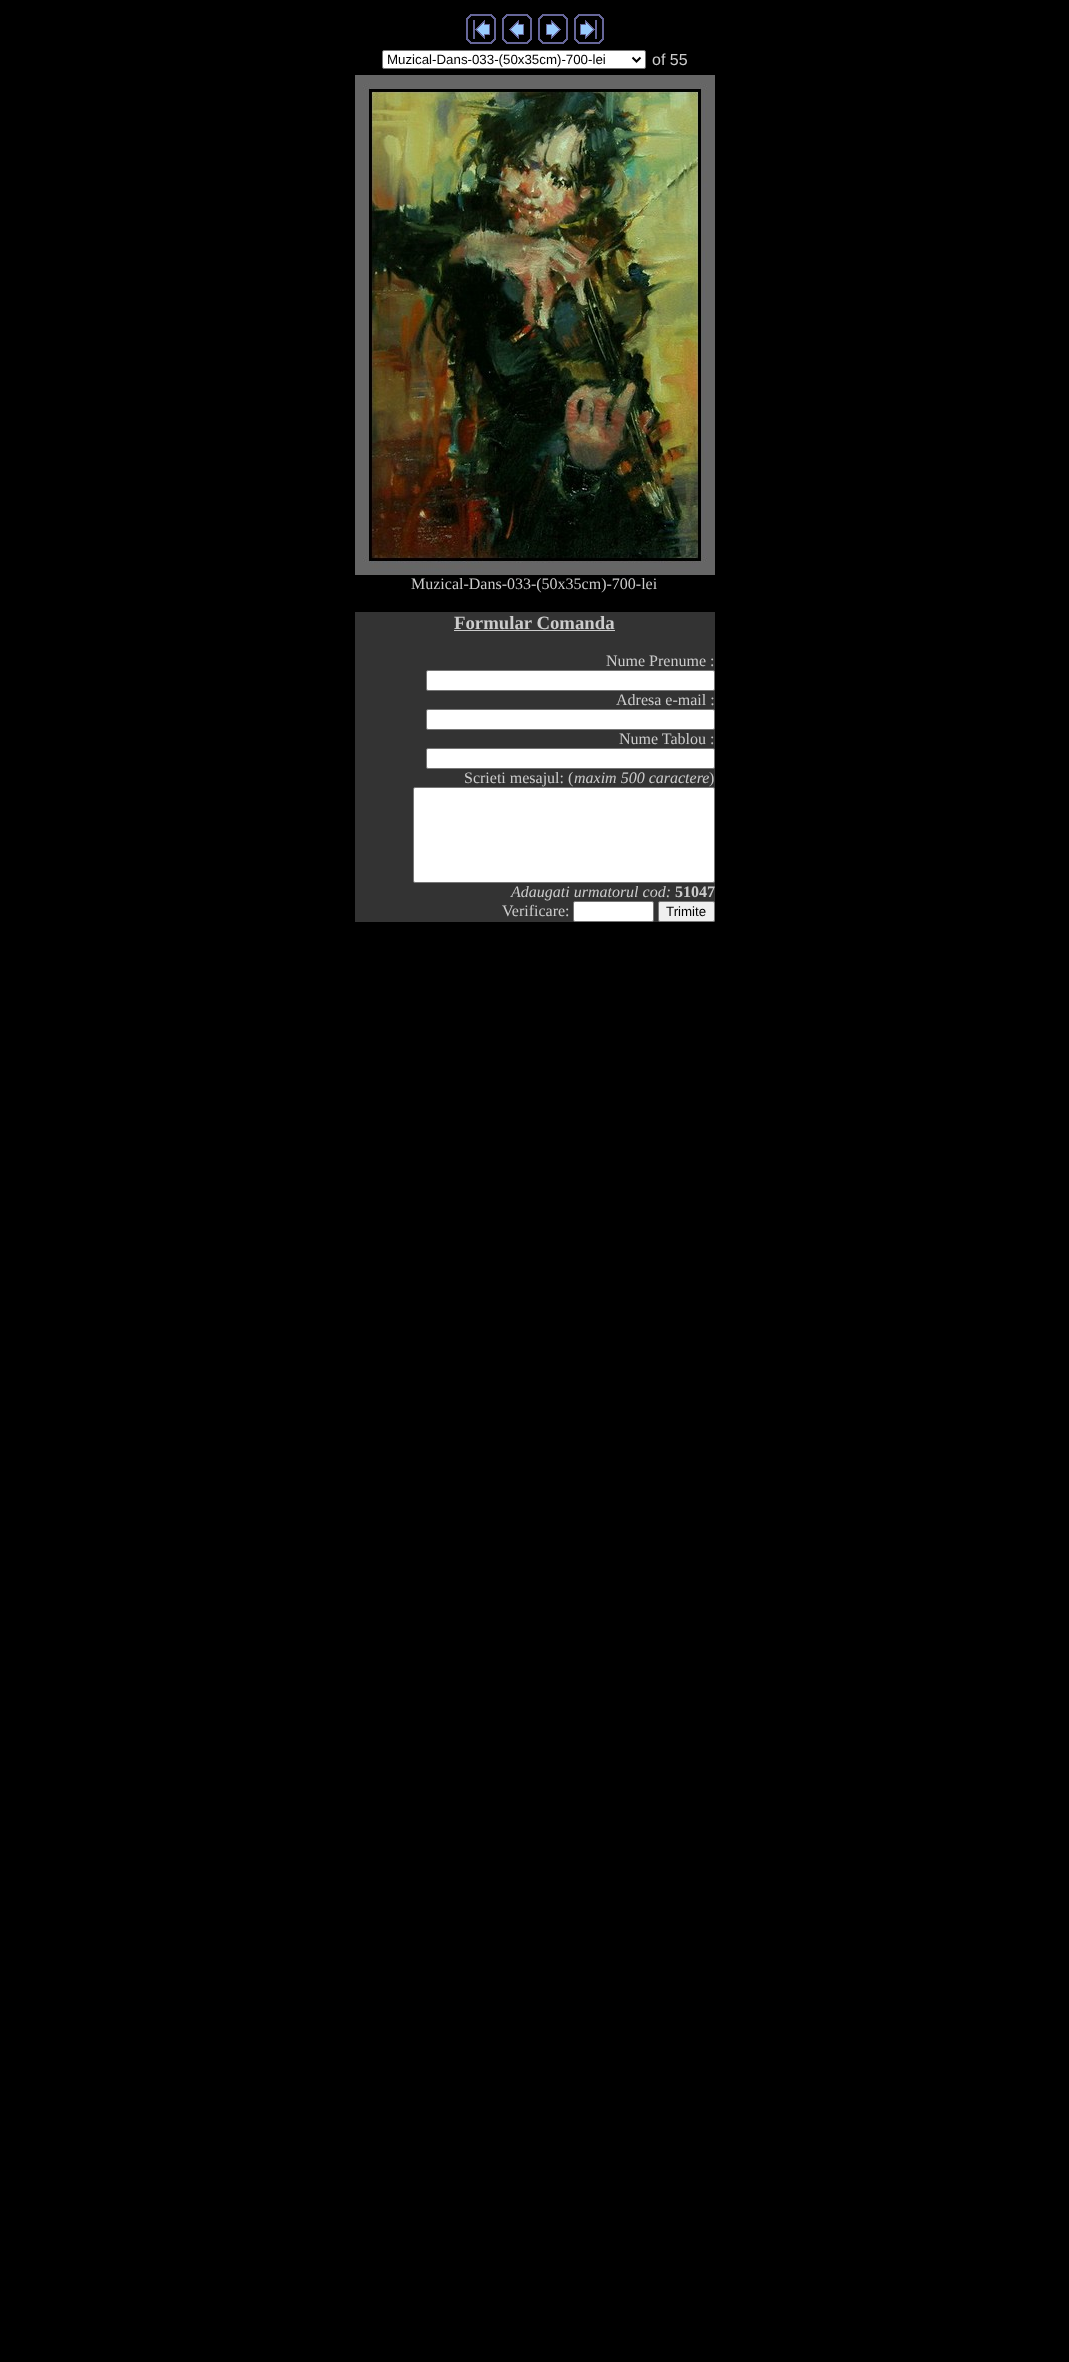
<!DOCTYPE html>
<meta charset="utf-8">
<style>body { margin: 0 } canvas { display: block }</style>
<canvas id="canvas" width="1069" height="2362"></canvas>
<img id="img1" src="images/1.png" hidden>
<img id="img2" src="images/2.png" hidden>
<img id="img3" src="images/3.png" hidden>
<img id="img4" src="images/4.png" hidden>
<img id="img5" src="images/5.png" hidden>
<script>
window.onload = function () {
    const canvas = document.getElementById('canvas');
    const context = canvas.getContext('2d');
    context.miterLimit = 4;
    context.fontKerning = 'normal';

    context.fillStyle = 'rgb(0, 0, 0)';
    context.fillRect(0, 0, 1069, 2362);
    context.drawImage(document.getElementById('img1'), 466, 14, 30, 30);
    context.drawImage(document.getElementById('img2'), 502, 14, 30, 30);
    context.drawImage(document.getElementById('img3'), 538, 14, 30, 30);
    context.drawImage(document.getElementById('img4'), 574, 14, 30, 30);
    context.fillStyle = 'rgb(255, 255, 255)';
    context.beginPath();
    context.roundRect(382.5, 50.5, 263, 18, 1.5);
    context.fill();
    context.strokeStyle = 'rgb(118, 118, 118)';
    context.stroke();
    context.beginPath();
    context.moveTo(632.5, 57.5);
    context.lineTo(636.5, 61.5);
    context.lineTo(640.5, 57.5);
    context.strokeStyle = 'rgb(0, 0, 0)';
    context.lineWidth = 2;
    context.stroke();
    context.drawImage(document.getElementById('img5'), 355, 75, 360, 500);
    context.fillStyle = 'rgb(51, 51, 51)';
    context.fillRect(355, 612, 360, 310);
    context.fillStyle = 'rgb(204, 204, 204)';
    context.fillRect(454, 630, 161, 1);
    context.fillStyle = 'rgb(255, 255, 255)';
    context.beginPath();
    context.roundRect(426.5, 670.5, 288, 20, 1.5);
    context.fill();
    context.strokeStyle = 'rgb(118, 118, 118)';
    context.lineWidth = 1;
    context.stroke();
    context.beginPath();
    context.roundRect(426.5, 709.5, 288, 20, 1.5);
    context.fill();
    context.stroke();
    context.beginPath();
    context.roundRect(426.5, 748.5, 288, 20, 1.5);
    context.fill();
    context.stroke();
    context.beginPath();
    context.roundRect(413.5, 787.5, 301, 95, 1.5);
    context.fill();
    context.stroke();
    context.beginPath();
    context.roundRect(573.5, 901.5, 80, 20, 1.5);
    context.fill();
    context.stroke();
    context.fillStyle = 'rgb(239, 239, 239)';
    context.beginPath();
    context.roundRect(658.5, 901.5, 56, 20, 1.5);
    context.fill();
    context.stroke();
    context.font = '13.3px Liberation Sans';
    context.fillStyle = 'rgb(0, 0, 0)';
    context.fillText('Muzical-Dans-033-(50x35cm)-700-lei', 387, 64);
    context.font = '16px Liberation Sans';
    context.fillStyle = 'rgb(204, 204, 204)';
    context.fillText('of 55', 652, 65);
    context.font = '16px Liberation Serif';
    context.fillText('Muzical-Dans-033-(50x35cm)-700-lei', 411, 589);
    context.font = 'bold 18.75px Liberation Serif';
    context.fillText('Formular Comanda', 454, 629);
    context.font = '16px Liberation Serif';
    context.fillText('Nume Prenume :', 606, 666);
    context.fillText('Adresa e-mail :', 616, 705);
    context.fillText('Nume Tablou :', 619, 744);
    context.fillText('Scrieti mesajul: (', 464, 783);
    context.font = 'italic 16px Liberation Serif';
    context.fillText('maxim 500 caractere', 574, 783);
    context.font = '16px Liberation Serif';
    context.fillText(')', 709, 783);
    context.font = 'italic 16px Liberation Serif';
    context.fillText('Adaugati urmatorul cod:', 511, 897);
    context.font = 'bold 16px Liberation Serif';
    context.fillText('51047', 675, 897);
    context.font = '16px Liberation Serif';
    context.fillText('Verificare:', 502, 916);
    context.font = '13.3px Liberation Sans';
    context.fillStyle = 'rgb(0, 0, 0)';
    context.fillText('Trimite', 666, 916);
};
</script>
